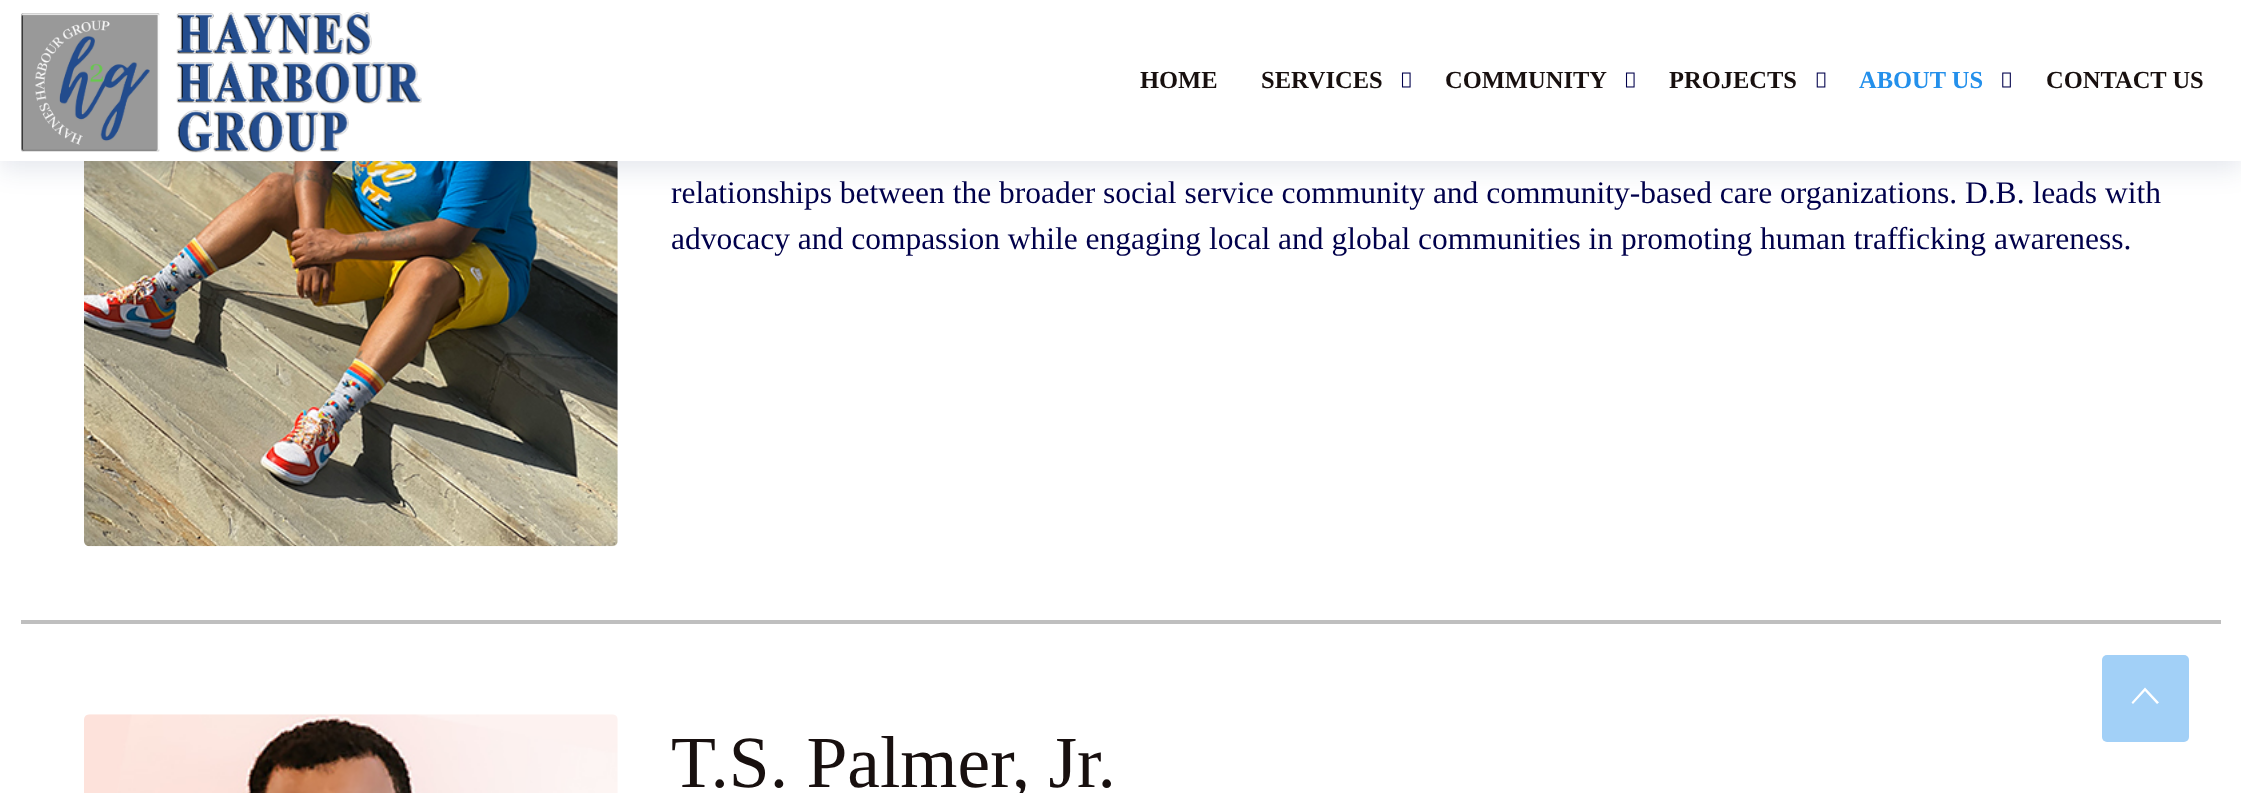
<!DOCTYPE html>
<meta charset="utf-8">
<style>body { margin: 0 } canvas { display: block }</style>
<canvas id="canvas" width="2241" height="793"></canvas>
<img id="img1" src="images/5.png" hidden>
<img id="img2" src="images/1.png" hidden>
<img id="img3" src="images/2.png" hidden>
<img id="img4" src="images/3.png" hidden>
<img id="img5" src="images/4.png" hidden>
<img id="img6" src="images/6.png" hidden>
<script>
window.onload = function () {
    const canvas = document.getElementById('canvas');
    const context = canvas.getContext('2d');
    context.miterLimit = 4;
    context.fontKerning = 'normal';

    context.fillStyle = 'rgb(255, 255, 255)';
    context.fillRect(0, 0, 2241, 793);
    context.drawImage(document.getElementById('img1'), 84, 161, 534, 386);
    context.fillStyle = 'rgba(0, 33, 85, 0.1)';
    context.filter = 'blur(13px)';
    context.beginPath();
    context.rect(0, 9, 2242, 161);
    context.fill();
    context.filter = 'none';
    context.fillStyle = 'rgb(255, 255, 255)';
    context.fillRect(0, 0, 2241, 161);
    context.drawImage(document.getElementById('img2'), 21, 12, 401, 141);
    context.drawImage(document.getElementById('img3'), 1401, 72, 10, 16);
    context.drawImage(document.getElementById('img3'), 1625, 72, 10, 16);
    context.drawImage(document.getElementById('img4'), 1816, 72, 10, 16);
    context.drawImage(document.getElementById('img5'), 2002, 72, 9, 16);
    context.fillStyle = 'rgb(191, 191, 191)';
    context.fillRect(21, 620, 2200, 4);
    context.drawImage(document.getElementById('img6'), 84, 714, 534, 79);
    context.fillStyle = 'rgb(162, 208, 247)';
    context.beginPath();
    context.roundRect(2102, 655, 87, 87, 5);
    context.fill();
    context.fillStyle = 'rgb(255, 255, 255)';
    context.beginPath();
    context.moveTo(2157, 704);
    context.lineTo(2145, 691);
    context.lineTo(2133, 704);
    context.lineTo(2131.5, 702.5);
    context.lineTo(2145, 687.5);
    context.lineTo(2159, 702.5);
    context.closePath();
    context.fill();
    context.font = 'bold 24.5px Liberation Serif';
    context.fillStyle = 'rgb(24, 16, 15)';
    context.fillText('HOME', 1140, 88);
    context.fillText('SERVICES', 1261, 88);
    context.fillText('COMMUNITY', 1445, 88);
    context.fillText('PROJECTS', 1669, 88);
    context.fillStyle = 'rgb(36, 144, 235)';
    context.fillText('ABOUT US', 1859, 88);
    context.fillStyle = 'rgb(24, 16, 15)';
    context.fillText('CONTACT US', 2046, 88);
    context.font = '31.5px Liberation Serif';
    context.fillStyle = 'rgb(0, 0, 75)';
    context.fillText('relationships between the broader social service community and community-based care organizations. D.B. leads with', 671, 203);
    context.fillText('advocacy and compassion while engaging local and global communities in promoting human trafficking awareness.', 671, 249);
    context.font = '73.5px Liberation Serif';
    context.fillStyle = 'rgb(24, 16, 15)';
    context.fillText('T.S. Palmer, Jr.', 671, 787);
};
</script>
